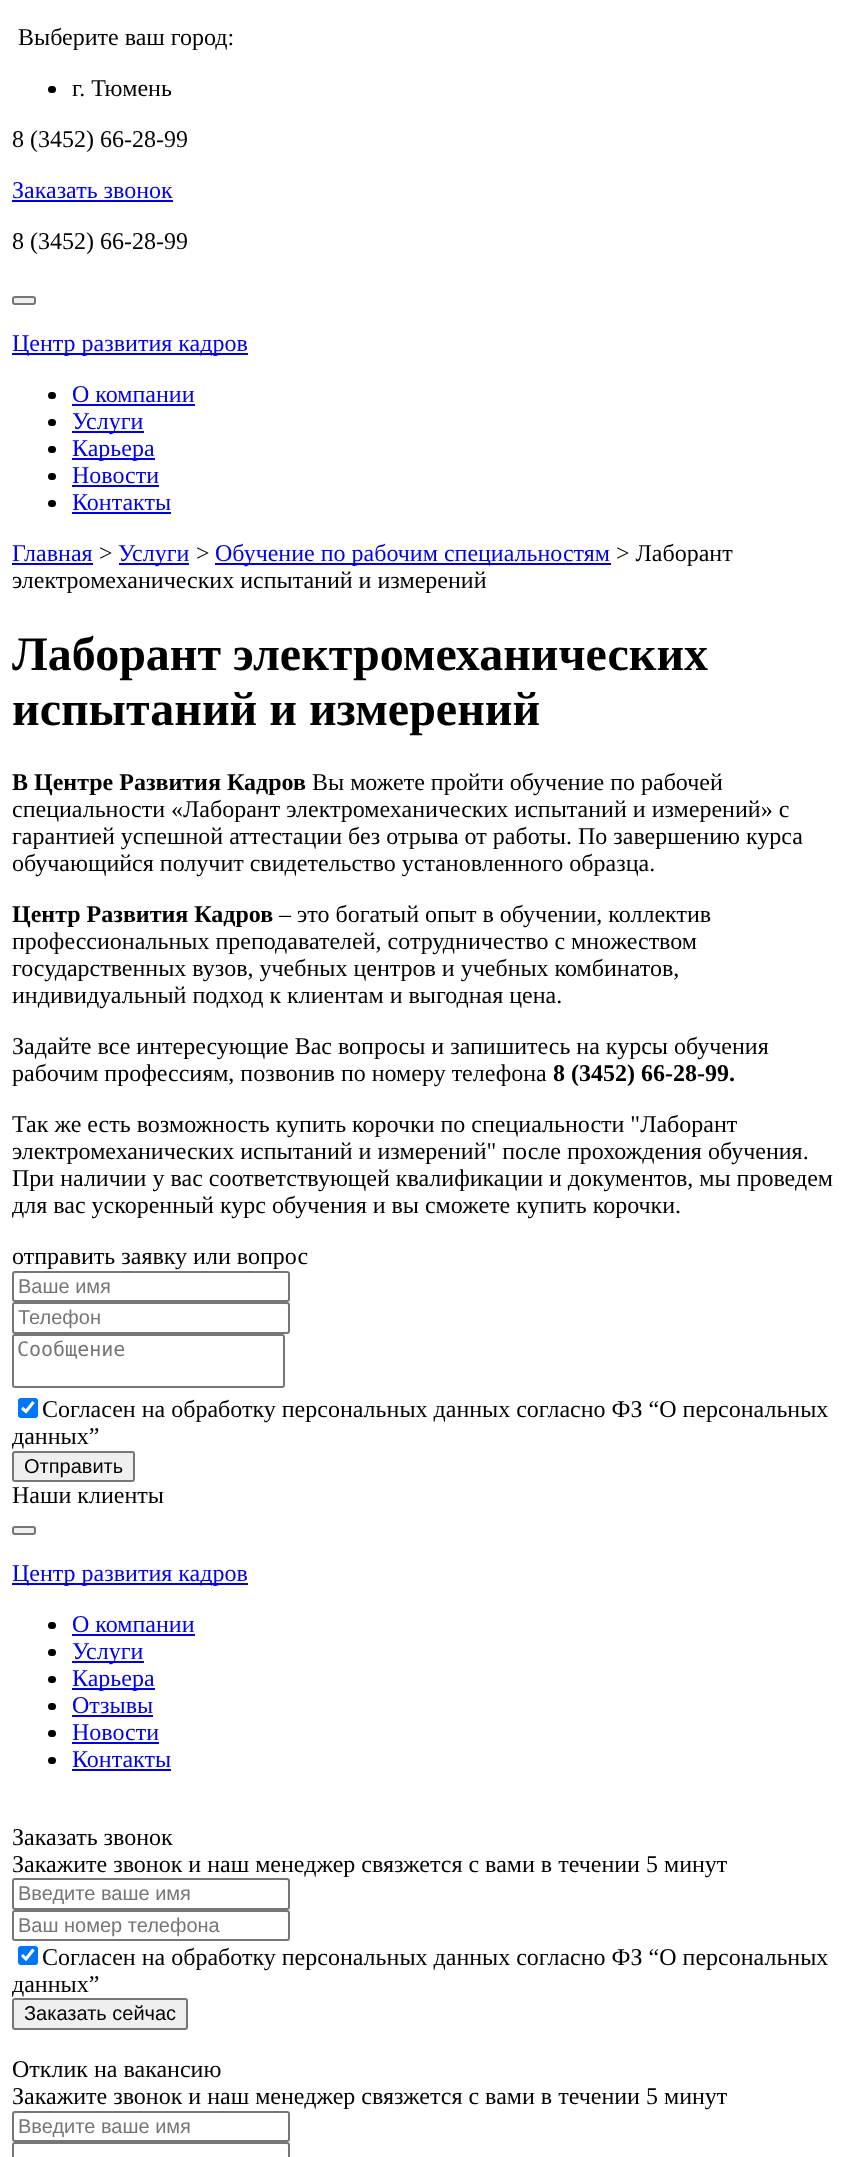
<!DOCTYPE html>
<meta charset="utf-8">
<style>body { margin: 0 } canvas { display: block }</style>
<canvas id="canvas" width="864" height="2157"></canvas>
<script>
window.onload = function () {
    const canvas = document.getElementById('canvas');
    const context = canvas.getContext('2d');
    context.miterLimit = 4;
    context.fontKerning = 'normal';

    context.fillStyle = 'rgb(255, 255, 255)';
    context.fillRect(0, 0, 864, 2157);
    context.fillStyle = 'rgb(0, 0, 0)';
    context.beginPath();
    context.roundRect(48, 86, 8, 7, 3.5);
    context.fill();
    context.fillStyle = 'rgb(0, 0, 238)';
    context.fillRect(12, 200, 161, 2);
    context.fillStyle = 'rgb(239, 239, 239)';
    context.beginPath();
    context.roundRect(13, 297, 22, 7, 2);
    context.fill();
    context.strokeStyle = 'rgb(118, 118, 118)';
    context.lineWidth = 2;
    context.stroke();
    context.fillStyle = 'rgb(0, 0, 238)';
    context.fillRect(12, 353, 236, 2);
    context.fillStyle = 'rgb(0, 0, 0)';
    context.beginPath();
    context.roundRect(48, 392, 8, 7, 3.5);
    context.fill();
    context.fillStyle = 'rgb(0, 0, 238)';
    context.fillRect(72, 404, 123, 2);
    context.fillStyle = 'rgb(0, 0, 0)';
    context.beginPath();
    context.roundRect(48, 419, 8, 7, 3.5);
    context.fill();
    context.fillStyle = 'rgb(0, 0, 238)';
    context.fillRect(72, 431, 72, 2);
    context.fillStyle = 'rgb(0, 0, 0)';
    context.beginPath();
    context.roundRect(48, 446, 8, 7, 3.5);
    context.fill();
    context.fillStyle = 'rgb(0, 0, 238)';
    context.fillRect(72, 458, 83, 2);
    context.fillStyle = 'rgb(0, 0, 0)';
    context.beginPath();
    context.roundRect(48, 473, 8, 7, 3.5);
    context.fill();
    context.fillStyle = 'rgb(0, 0, 238)';
    context.fillRect(72, 485, 87, 2);
    context.fillStyle = 'rgb(0, 0, 0)';
    context.beginPath();
    context.roundRect(48, 500, 8, 7, 3.5);
    context.fill();
    context.fillStyle = 'rgb(0, 0, 238)';
    context.fillRect(72, 512, 99, 2);
    context.fillRect(12, 563, 81, 2);
    context.fillRect(119, 563, 70, 2);
    context.fillRect(215, 563, 396, 2);
    context.beginPath();
    context.roundRect(13, 1272, 276, 29, 2);
    context.stroke();
    context.beginPath();
    context.roundRect(13, 1303, 276, 30, 2);
    context.stroke();
    context.beginPath();
    context.roundRect(13, 1335, 271, 52, 2);
    context.stroke();
    context.fillStyle = 'rgb(0, 117, 255)';
    context.beginPath();
    context.roundRect(18, 1398, 20, 20, 3);
    context.fill();
    context.beginPath();
    context.moveTo(22, 1408);
    context.lineTo(26, 1411.5);
    context.lineTo(33.5, 1402);
    context.strokeStyle = 'rgb(255, 255, 255)';
    context.lineWidth = 3.1;
    context.stroke();
    context.fillStyle = 'rgb(239, 239, 239)';
    context.beginPath();
    context.roundRect(13, 1452, 121, 29, 2);
    context.fill();
    context.strokeStyle = 'rgb(118, 118, 118)';
    context.lineWidth = 2;
    context.stroke();
    context.beginPath();
    context.roundRect(13, 1527, 22, 7, 2);
    context.fill();
    context.stroke();
    context.fillStyle = 'rgb(0, 0, 238)';
    context.fillRect(12, 1583, 236, 2);
    context.fillStyle = 'rgb(0, 0, 0)';
    context.beginPath();
    context.roundRect(48, 1622, 8, 7, 3.5);
    context.fill();
    context.fillStyle = 'rgb(0, 0, 238)';
    context.fillRect(72, 1634, 123, 2);
    context.fillStyle = 'rgb(0, 0, 0)';
    context.beginPath();
    context.roundRect(48, 1649, 8, 7, 3.5);
    context.fill();
    context.fillStyle = 'rgb(0, 0, 238)';
    context.fillRect(72, 1661, 72, 2);
    context.fillStyle = 'rgb(0, 0, 0)';
    context.beginPath();
    context.roundRect(48, 1676, 8, 7, 3.5);
    context.fill();
    context.fillStyle = 'rgb(0, 0, 238)';
    context.fillRect(72, 1688, 83, 2);
    context.fillStyle = 'rgb(0, 0, 0)';
    context.beginPath();
    context.roundRect(48, 1703, 8, 7, 3.5);
    context.fill();
    context.fillStyle = 'rgb(0, 0, 238)';
    context.fillRect(72, 1715, 81, 2);
    context.fillStyle = 'rgb(0, 0, 0)';
    context.beginPath();
    context.roundRect(48, 1730, 8, 7, 3.5);
    context.fill();
    context.fillStyle = 'rgb(0, 0, 238)';
    context.fillRect(72, 1742, 87, 2);
    context.fillStyle = 'rgb(0, 0, 0)';
    context.beginPath();
    context.roundRect(48, 1757, 8, 7, 3.5);
    context.fill();
    context.fillStyle = 'rgb(0, 0, 238)';
    context.fillRect(72, 1769, 99, 2);
    context.beginPath();
    context.roundRect(13, 1879, 276, 30, 2);
    context.stroke();
    context.beginPath();
    context.roundRect(13, 1911, 276, 29, 2);
    context.stroke();
    context.fillStyle = 'rgb(0, 117, 255)';
    context.beginPath();
    context.roundRect(18, 1946, 20, 19, 3);
    context.fill();
    context.beginPath();
    context.moveTo(22, 1955);
    context.lineTo(26, 1959);
    context.lineTo(33.5, 1949.5);
    context.strokeStyle = 'rgb(255, 255, 255)';
    context.lineWidth = 3.1;
    context.stroke();
    context.fillStyle = 'rgb(239, 239, 239)';
    context.beginPath();
    context.roundRect(13, 1999, 174, 30, 2);
    context.fill();
    context.strokeStyle = 'rgb(118, 118, 118)';
    context.lineWidth = 2;
    context.stroke();
    context.beginPath();
    context.roundRect(13, 2112, 276, 29, 2);
    context.stroke();
    context.beginPath();
    context.roundRect(13, 2143, 276, 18, 2);
    context.stroke();
    context.font = '24px Liberation Serif';
    context.fillStyle = 'rgb(0, 0, 0)';
    context.fillText('Выберите ваш город:', 18, 45);
    context.fillText('г. Тюмень', 72, 96);
    context.fillText('8 (3452) 66-28-99', 12, 147);
    context.fillStyle = 'rgb(0, 0, 238)';
    context.fillText('Заказать звонок', 12, 198);
    context.fillStyle = 'rgb(0, 0, 0)';
    context.fillText('8 (3452) 66-28-99', 12, 249);
    context.fillStyle = 'rgb(0, 0, 238)';
    context.fillText('Центр развития кадров', 12, 351);
    context.fillText('О компании', 72, 402);
    context.fillText('Услуги', 72, 429);
    context.fillText('Карьера', 72, 456);
    context.fillText('Новости', 72, 483);
    context.fillText('Контакты', 72, 510);
    context.fillText('Главная', 12, 561);
    context.fillStyle = 'rgb(0, 0, 0)';
    context.fillText('>', 99, 561);
    context.fillStyle = 'rgb(0, 0, 238)';
    context.fillText('Услуги', 118, 561);
    context.fillStyle = 'rgb(0, 0, 0)';
    context.fillText('>', 196, 561);
    context.fillStyle = 'rgb(0, 0, 238)';
    context.fillText('Обучение по рабочим специальностям', 215, 561);
    context.fillStyle = 'rgb(0, 0, 0)';
    context.fillText('> Лаборант', 616, 561);
    context.fillText('электромеханических испытаний и измерений', 12, 588);
    context.font = 'bold 48px Liberation Serif';
    context.fillText('Лаборант электромеханических', 12, 670);
    context.fillText('испытаний и измерений', 12, 725);
    context.font = 'bold 24px Liberation Serif';
    context.fillText('В Центре Развития Кадров', 12, 790);
    context.font = '24px Liberation Serif';
    context.fillText('Вы можете пройти обучение по рабочей', 312, 790);
    context.fillText('специальности «Лаборант электромеханических испытаний и измерений» с', 12, 817);
    context.fillText('гарантией успешной аттестации без отрыва от работы. По завершению курса', 12, 844);
    context.fillText('обучающийся получит свидетельство установленного образца.', 12, 871);
    context.font = 'bold 24px Liberation Serif';
    context.fillText('Центр Развития Кадров', 12, 922);
    context.font = '24px Liberation Serif';
    context.fillText('– это богатый опыт в обучении, коллектив', 279, 922);
    context.fillText('профессиональных преподавателей, сотрудничество с множеством', 12, 949);
    context.fillText('государственных вузов, учебных центров и учебных комбинатов,', 12, 976);
    context.fillText('индивидуальный подход к клиентам и выгодная цена.', 12, 1003);
    context.fillText('Задайте все интересующие Вас вопросы и запишитесь на курсы обучения', 12, 1054);
    context.fillText('рабочим профессиям, позвонив по номеру телефона', 12, 1081);
    context.font = 'bold 24px Liberation Serif';
    context.fillText('8 (3452) 66-28-99.', 553, 1081);
    context.font = '24px Liberation Serif';
    context.fillText('Так же есть возможность купить корочки по специальности "Лаборант', 12, 1132);
    context.fillText('электромеханических испытаний и измерений" после прохождения обучения.', 12, 1159);
    context.fillText('При наличии у вас соответствующей квалификации и документов, мы проведем', 12, 1186);
    context.fillText('для вас ускоренный курс обучения и вы сможете купить корочки.', 12, 1213);
    context.fillText('отправить заявку или вопрос', 12, 1264);
    context.font = '20px Liberation Sans';
    context.fillStyle = 'rgb(117, 117, 117)';
    context.fillText('Ваше имя', 18, 1293);
    context.fillText('Телефон', 18, 1324);
    context.font = '20px DejaVu Sans Mono';
    context.fillText('Сообщение', 17, 1356);
    context.font = '24px Liberation Serif';
    context.fillStyle = 'rgb(0, 0, 0)';
    context.fillText('Согласен на обработку персональных данных согласно ФЗ “О персональных', 42, 1417);
    context.fillText('данных”', 12, 1444);
    context.font = '20px Liberation Sans';
    context.fillText('Отправить', 24, 1473);
    context.font = '24px Liberation Serif';
    context.fillText('Наши клиенты', 12, 1503);
    context.fillStyle = 'rgb(0, 0, 238)';
    context.fillText('Центр развития кадров', 12, 1581);
    context.fillText('О компании', 72, 1632);
    context.fillText('Услуги', 72, 1659);
    context.fillText('Карьера', 72, 1686);
    context.fillText('Отзывы', 72, 1713);
    context.fillText('Новости', 72, 1740);
    context.fillText('Контакты', 72, 1767);
    context.fillStyle = 'rgb(0, 0, 0)';
    context.fillText('Заказать звонок', 12, 1845);
    context.fillText('Закажите звонок и наш менеджер связжется с вами в течении 5 минут', 12, 1872);
    context.font = '20px Liberation Sans';
    context.fillStyle = 'rgb(117, 117, 117)';
    context.fillText('Введите ваше имя', 18, 1900);
    context.fillText('Ваш номер телефона', 18, 1932);
    context.font = '24px Liberation Serif';
    context.fillStyle = 'rgb(0, 0, 0)';
    context.fillText('Согласен на обработку персональных данных согласно ФЗ “О персональных', 42, 1965);
    context.fillText('данных”', 12, 1992);
    context.font = '20px Liberation Sans';
    context.fillText('Заказать сейчас', 24, 2020);
    context.font = '24px Liberation Serif';
    context.fillText('Отклик на вакансию', 12, 2077);
    context.fillText('Закажите звонок и наш менеджер связжется с вами в течении 5 минут', 12, 2104);
    context.font = '20px Liberation Sans';
    context.fillStyle = 'rgb(117, 117, 117)';
    context.fillText('Введите ваше имя', 18, 2133);
};
</script>
